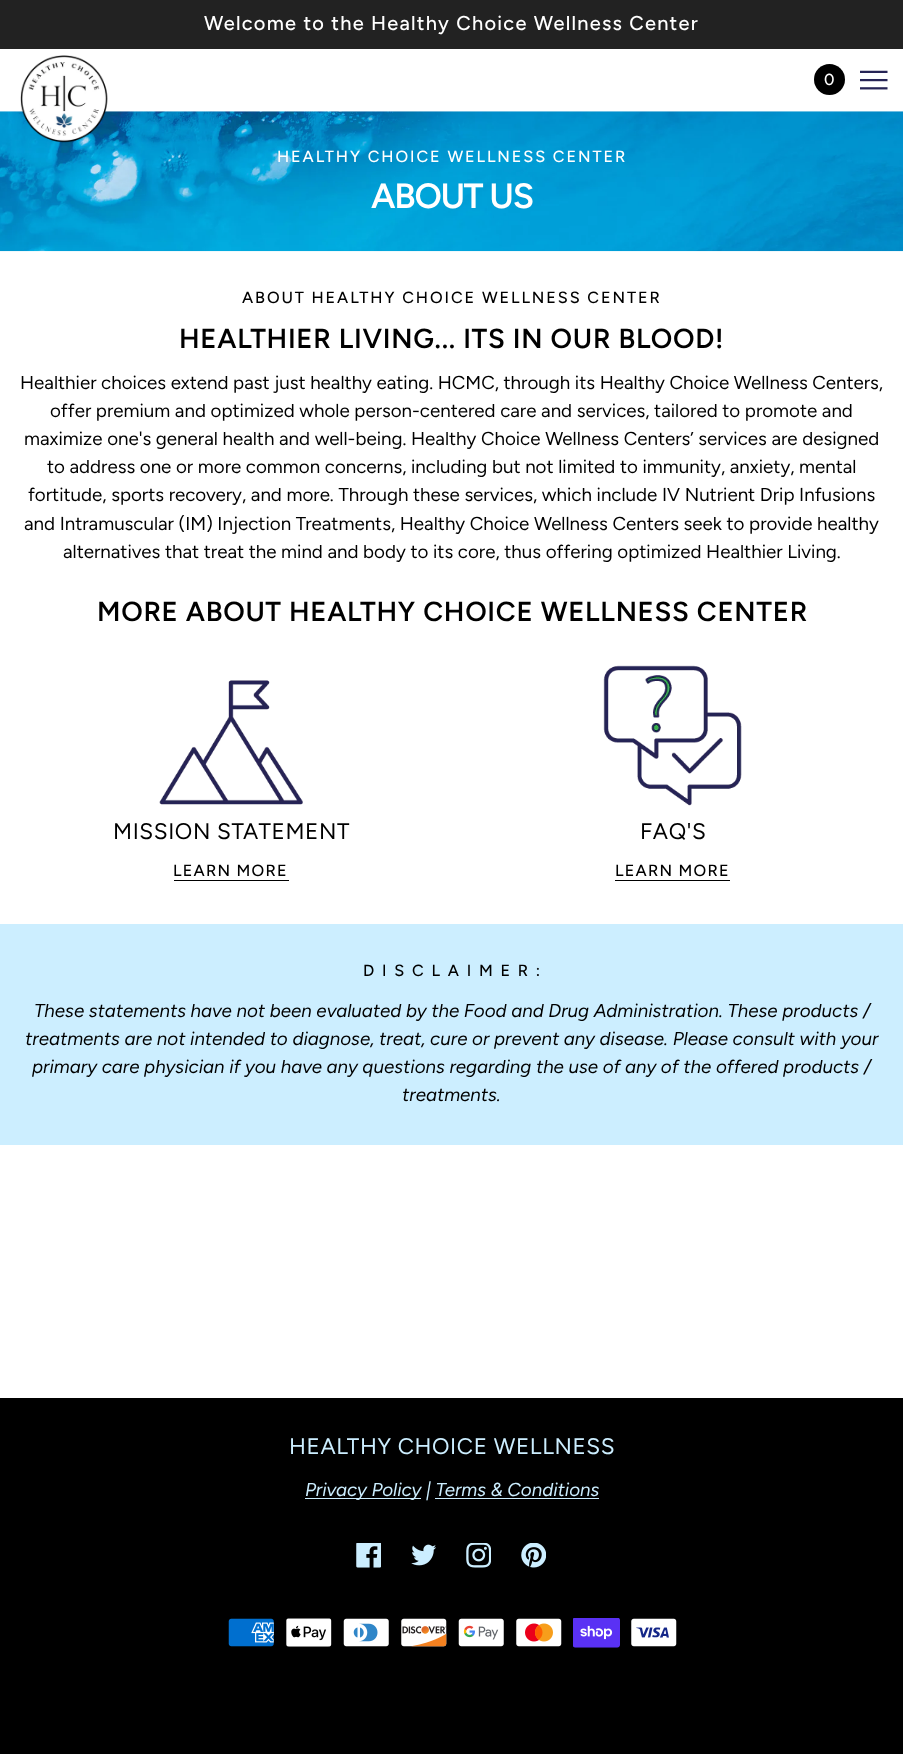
<!DOCTYPE html>
<meta charset="utf-8">
<style>body { margin: 0 } canvas { display: block }</style>
<canvas id="canvas" width="903" height="1754"></canvas>
<img id="img1" src="images/3.png" hidden>
<img id="img2" src="images/1.png" hidden>
<img id="img3" src="images/2.png" hidden>
<img id="img4" src="images/4.png" hidden>
<img id="img5" src="images/5.png" hidden>
<img id="img6" src="images/6.png" hidden>
<img id="img7" src="images/7.png" hidden>
<img id="img8" src="images/8.png" hidden>
<img id="img9" src="images/9.png" hidden>
<img id="img10" src="images/10.png" hidden>
<img id="img11" src="images/11.png" hidden>
<img id="img12" src="images/12.png" hidden>
<img id="img13" src="images/13.png" hidden>
<img id="img14" src="images/14.png" hidden>
<img id="img15" src="images/15.png" hidden>
<img id="img16" src="images/16.png" hidden>
<img id="img17" src="images/17.png" hidden>
<script>
window.onload = function () {
    const canvas = document.getElementById('canvas');
    const context = canvas.getContext('2d');
    context.miterLimit = 4;
    context.fontKerning = 'normal';

    context.fillStyle = 'rgb(255, 255, 255)';
    context.fillRect(0, 0, 903, 1754);
    context.fillStyle = 'rgb(34, 34, 34)';
    context.fillRect(0, 0, 903, 49);
    context.drawImage(document.getElementById('img1'), 0, 111, 903, 141);
    context.drawImage(document.getElementById('img2'), 20, 55, 88, 88);
    context.fillStyle = 'rgb(0, 0, 0)';
    context.beginPath();
    context.arc(829.5, 79.5, 15.5, 0, 2 * Math.PI);
    context.fill();
    context.drawImage(document.getElementById('img3'), 860, 70, 28, 20);
    context.drawImage(document.getElementById('img4'), 159, 680, 144, 125);
    context.fillRect(174, 880, 115, 1);
    context.drawImage(document.getElementById('img5'), 603, 665, 139, 141);
    context.fillRect(615, 880, 115, 1);
    context.fillStyle = 'rgb(204, 238, 255)';
    context.fillRect(0, 924, 903, 221);
    context.fillStyle = 'rgb(0, 0, 0)';
    context.fillRect(0, 1398, 903, 356);
    context.fillStyle = 'rgb(204, 238, 255)';
    context.fillRect(305, 1498, 116, 1);
    context.fillRect(435, 1498, 164, 1);
    context.drawImage(document.getElementById('img6'), 356, 1543, 25, 25);
    context.drawImage(document.getElementById('img7'), 411, 1544, 25, 22);
    context.drawImage(document.getElementById('img8'), 466, 1543, 25, 25);
    context.drawImage(document.getElementById('img9'), 521, 1543, 25, 25);
    context.drawImage(document.getElementById('img10'), 228, 1618, 46, 29);
    context.drawImage(document.getElementById('img11'), 286, 1618, 46, 29);
    context.drawImage(document.getElementById('img12'), 343, 1618, 46, 29);
    context.drawImage(document.getElementById('img13'), 401, 1618, 46, 29);
    context.drawImage(document.getElementById('img14'), 458, 1618, 46, 29);
    context.drawImage(document.getElementById('img15'), 516, 1618, 46, 29);
    context.drawImage(document.getElementById('img16'), 573, 1618, 47, 30);
    context.drawImage(document.getElementById('img17'), 631, 1618, 46, 29);
    context.letterSpacing = '1.25px';
    context.font = '500 20px Figtree';
    context.fillStyle = 'rgb(255, 255, 255)';
    context.fillText('Welcome to the Healthy Choice Wellness Center', 204, 30);
    context.font = '500 16.25px Figtree';
    context.fillText('0', 824, 85);
    context.letterSpacing = '1.9px';
    context.fillText('HEALTHY CHOICE WELLNESS CENTER', 277, 162);
    context.letterSpacing = '-1.25px';
    context.font = '600 35px Figtree';
    context.fillText('ABOUT US', 371, 208);
    context.letterSpacing = '1.9px';
    context.font = '500 16.25px Figtree';
    context.fillStyle = 'rgb(0, 0, 0)';
    context.fillText('ABOUT HEALTHY CHOICE WELLNESS CENTER', 242, 303);
    context.letterSpacing = '0.7px';
    context.font = '600 27.5px Figtree';
    context.fillText('HEALTHIER LIVING... ITS IN OUR BLOOD!', 179, 348);
    context.letterSpacing = '0px';
    context.font = '18.75px Figtree';
    context.fillText('Healthier choices extend past just healthy eating. HCMC, through its Healthy Choice Wellness Centers,', 20, 389);
    context.fillText('offer premium and optimized whole person-centered care and services, tailored to promote and', 50, 417);
    context.fillText('maximize one\'s general health and well-being. Healthy Choice Wellness Centers’ services are designed', 24, 445);
    context.fillText('to address one or more common concerns, including but not limited to immunity, anxiety, mental', 47, 473);
    context.fillText('fortitude, sports recovery, and more. Through these services, which include IV Nutrient Drip Infusions', 28, 501);
    context.fillText('and Intramuscular (IM) Injection Treatments, Healthy Choice Wellness Centers seek to provide healthy', 24, 530);
    context.fillText('alternatives that treat the mind and body to its core, thus offering optimized Healthier Living.', 63, 558);
    context.letterSpacing = '0.7px';
    context.font = '600 27.5px Figtree';
    context.fillText('MORE ABOUT HEALTHY CHOICE WELLNESS CENTER', 97, 621);
    context.letterSpacing = '0.6px';
    context.font = '22.5px Figtree';
    context.fillText('MISSION STATEMENT', 113, 839);
    context.letterSpacing = '1.25px';
    context.font = '500 16.25px Figtree';
    context.fillText('LEARN MORE', 173, 876);
    context.letterSpacing = '0.6px';
    context.font = '22.5px Figtree';
    context.fillText('FAQ\'S', 640, 839);
    context.letterSpacing = '1.25px';
    context.font = '500 16.25px Figtree';
    context.fillText('LEARN MORE', 615, 876);
    context.letterSpacing = '1.9px';
    context.fillText('D I S C L A I M E R :', 363, 976);
    context.letterSpacing = '0px';
    context.font = 'italic 18.75px Figtree';
    context.fillText('These statements have not been evaluated by the Food and Drug Administration. These products /', 34, 1017);
    context.fillText('treatments are not intended to diagnose, treat, cure or prevent any disease. Please consult with your', 25, 1045);
    context.fillText('primary care physician if you have any questions regarding the use of any of the offered products /', 32, 1073);
    context.fillText('treatments.', 402, 1101);
    context.letterSpacing = '0.6px';
    context.font = '22.5px Figtree';
    context.fillStyle = 'rgb(204, 238, 255)';
    context.fillText('HEALTHY CHOICE WELLNESS', 289, 1454);
    context.letterSpacing = '0px';
    context.font = 'italic 18.75px Figtree';
    context.fillText('Privacy Policy | Terms & Conditions', 305, 1496);
};
</script>
